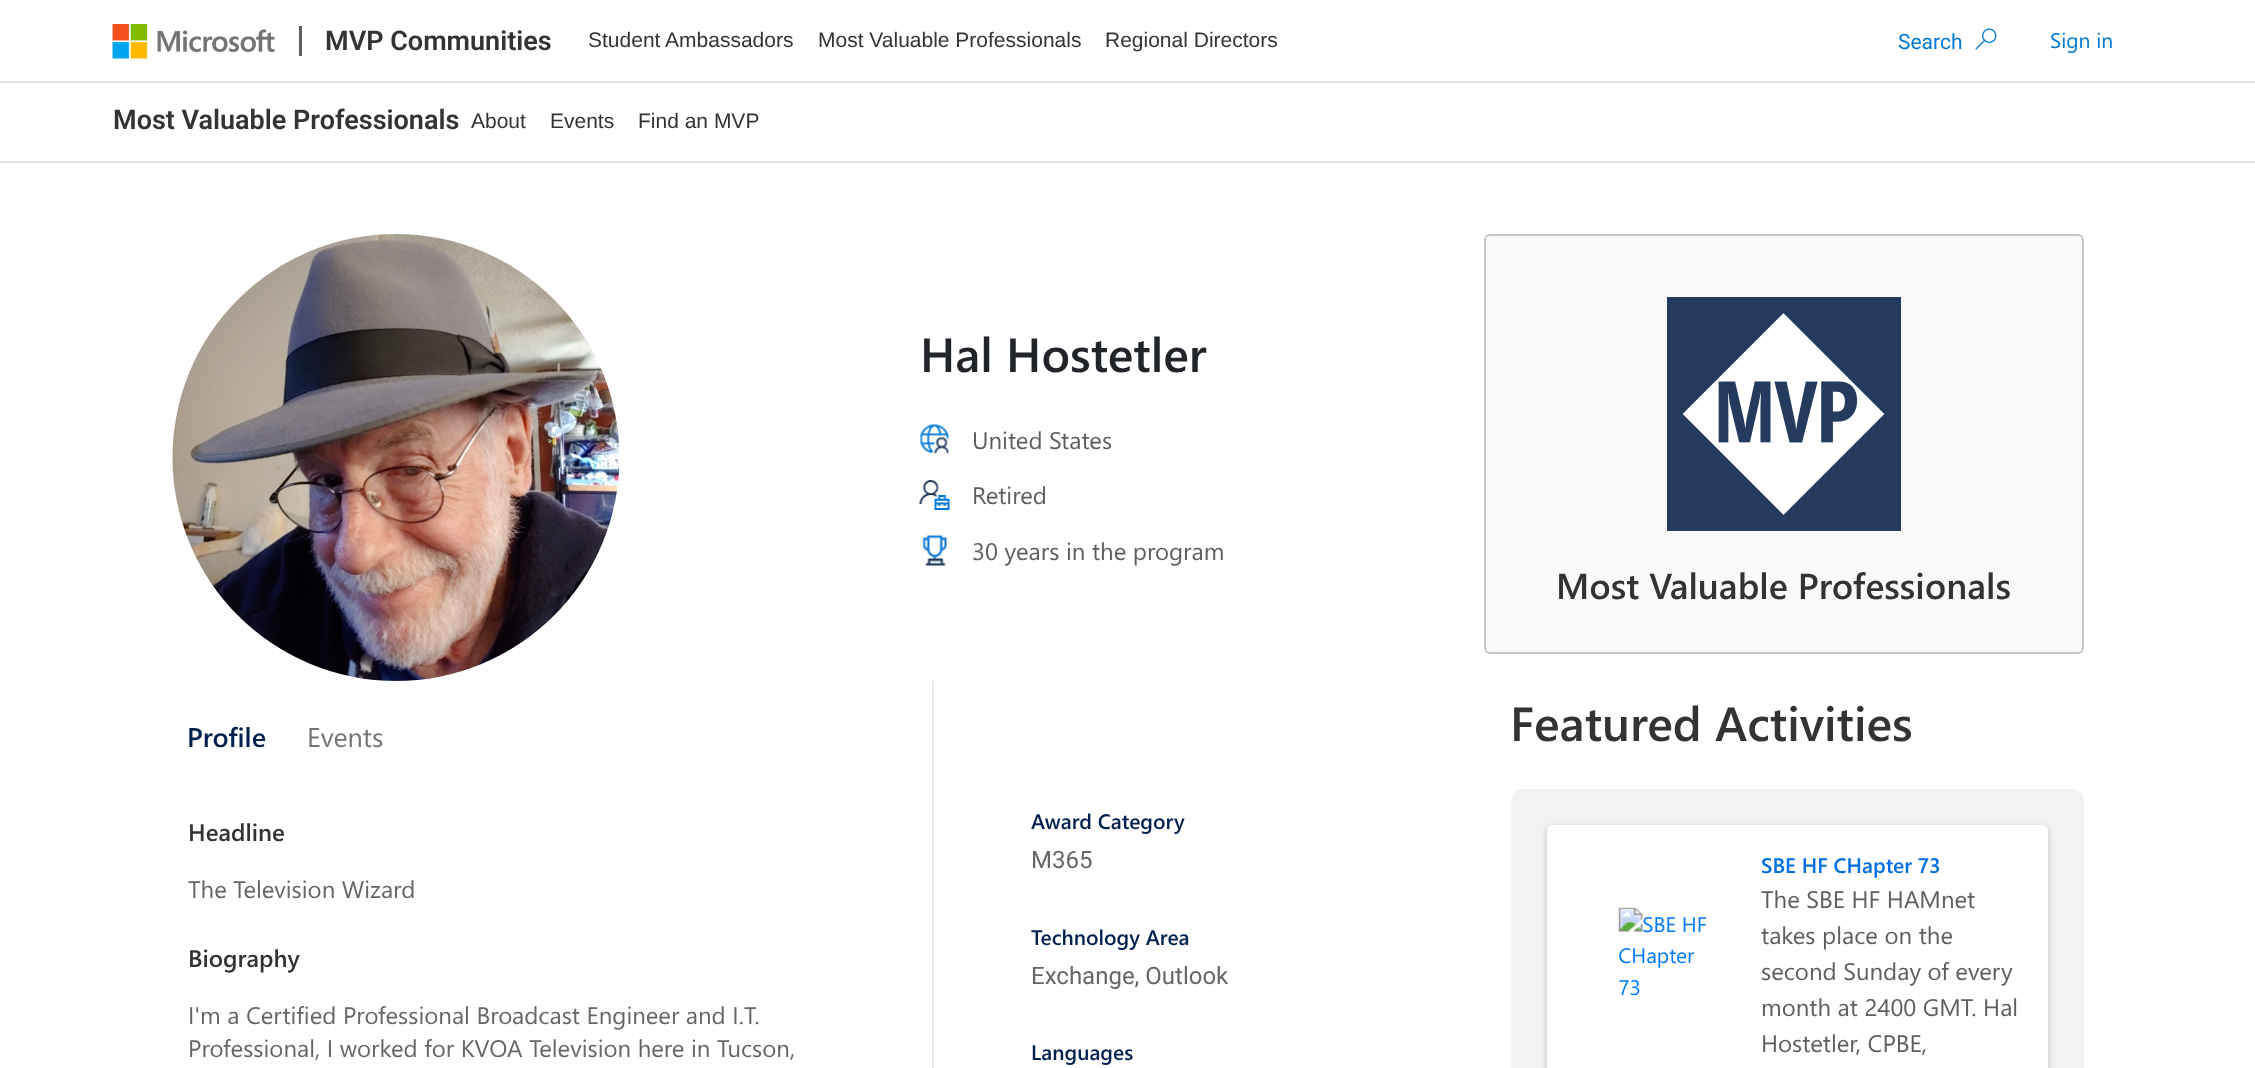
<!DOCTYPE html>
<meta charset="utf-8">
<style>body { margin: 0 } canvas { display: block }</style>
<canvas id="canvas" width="2255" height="1068"></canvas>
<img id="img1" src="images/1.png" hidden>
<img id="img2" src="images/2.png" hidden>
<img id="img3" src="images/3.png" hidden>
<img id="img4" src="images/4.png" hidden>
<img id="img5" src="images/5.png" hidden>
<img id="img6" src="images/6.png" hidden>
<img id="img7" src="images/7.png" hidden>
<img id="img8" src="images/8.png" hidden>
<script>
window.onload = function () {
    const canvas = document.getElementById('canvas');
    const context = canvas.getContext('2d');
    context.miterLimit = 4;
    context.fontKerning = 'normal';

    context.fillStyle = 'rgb(255, 255, 255)';
    context.fillRect(0, 0, 2255, 1068);
    context.drawImage(document.getElementById('img1'), 112, 24, 163, 35);
    context.fillStyle = 'rgb(94, 94, 94)';
    context.fillRect(299, 26, 3, 30);
    context.drawImage(document.getElementById('img2'), 1975, 28, 22, 22);
    context.fillStyle = 'rgb(227, 227, 227)';
    context.fillRect(0, 81, 2255, 2);
    context.fillRect(0, 161, 2255, 2);
    context.drawImage(document.getElementById('img3'), 172, 234, 448, 447);
    context.drawImage(document.getElementById('img4'), 920, 424, 29, 30);
    context.drawImage(document.getElementById('img5'), 919, 480, 31, 30);
    context.drawImage(document.getElementById('img6'), 922, 535, 25, 31);
    context.fillStyle = 'rgb(237, 235, 233)';
    context.fillRect(932, 681, 2, 387);
    context.fillStyle = 'rgb(243, 242, 241)';
    context.beginPath();
    context.roundRect(1511, 789, 573, 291, 12);
    context.fill();
    context.fillStyle = 'rgba(0, 0, 0, 0.2)';
    context.filter = 'blur(3px)';
    context.beginPath();
    context.roundRect(1547, 827, 501, 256, 6);
    context.fill();
    context.filter = 'none';
    context.fillStyle = 'rgb(255, 255, 255)';
    context.beginPath();
    context.roundRect(1547, 825, 501, 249, 6);
    context.fill();
    context.drawImage(document.getElementById('img7'), 1618, 907, 89, 89);
    context.fillStyle = 'rgb(250, 250, 250)';
    context.beginPath();
    context.roundRect(1485, 235, 598, 418, 5);
    context.fill();
    context.strokeStyle = 'rgb(200, 200, 200)';
    context.lineWidth = 2;
    context.stroke();
    context.drawImage(document.getElementById('img8'), 1667, 297, 234, 234);
    context.font = '600 27px Roboto';
    context.fillStyle = 'rgb(51, 51, 51)';
    context.fillText('MVP Communities', 325, 50);
    context.font = '21px Liberation Sans';
    context.fillText('Student Ambassadors', 588, 47);
    context.fillText('Most Valuable Professionals', 818, 47);
    context.fillText('Regional Directors', 1105, 47);
    context.font = '21px Roboto';
    context.fillStyle = 'rgb(0, 120, 212)';
    context.fillText('Search', 1898, 49);
    context.font = '21px Segoe UI';
    context.fillText('Sign in', 2050, 48);
    context.font = '600 27px Roboto';
    context.fillStyle = 'rgb(51, 51, 51)';
    context.fillText('Most Valuable Professionals', 113, 129);
    context.font = '21px Liberation Sans';
    context.fillText('About', 471, 128);
    context.fillText('Events', 550, 128);
    context.fillText('Find an MVP', 638, 128);
    context.font = '600 48px Segoe UI';
    context.fillStyle = 'rgb(33, 37, 41)';
    context.fillText('Hal Hostetler', 920, 372);
    context.font = '24px Segoe UI';
    context.fillStyle = 'rgb(96, 94, 92)';
    context.fillText('United States', 972, 449);
    context.fillText('Retired', 972, 504);
    context.fillText('30 years in the program', 972, 560);
    context.font = '600 27px Segoe UI';
    context.fillStyle = 'rgb(0, 32, 80)';
    context.fillText('Profile', 187, 747);
    context.font = '27px Segoe UI';
    context.fillStyle = 'rgb(116, 116, 116)';
    context.fillText('Events', 307, 747);
    context.font = '600 24px Segoe UI';
    context.fillStyle = 'rgb(51, 51, 51)';
    context.fillText('Headline', 188, 841);
    context.font = '24px Segoe UI';
    context.fillStyle = 'rgb(102, 102, 102)';
    context.fillText('The Television Wizard', 188, 898);
    context.font = '600 24px Segoe UI';
    context.fillStyle = 'rgb(51, 51, 51)';
    context.fillText('Biography', 188, 967);
    context.font = '24px Segoe UI';
    context.fillStyle = 'rgb(102, 102, 102)';
    context.fillText('I\'m a Certified Professional Broadcast Engineer and I.T.', 188, 1024);
    context.fillText('Professional, I worked for KVOA Television here in Tucson,', 188, 1057);
    context.font = '600 21px Segoe UI';
    context.fillStyle = 'rgb(0, 32, 80)';
    context.fillText('Award Category', 1031, 829);
    context.font = '24px Roboto';
    context.fillStyle = 'rgb(102, 102, 102)';
    context.fillText('M365', 1031, 868);
    context.font = '600 21px Segoe UI';
    context.fillStyle = 'rgb(0, 32, 80)';
    context.fillText('Technology Area', 1031, 945);
    context.font = '24px Roboto';
    context.fillStyle = 'rgb(102, 102, 102)';
    context.fillText('Exchange, Outlook', 1031, 984);
    context.font = '600 21px Segoe UI';
    context.fillStyle = 'rgb(0, 32, 80)';
    context.fillText('Languages', 1031, 1060);
    context.font = '600 48px Segoe UI';
    context.fillStyle = 'rgb(51, 51, 51)';
    context.fillText('Featured Activities', 1510, 741);
    context.font = '600 21px Segoe UI';
    context.fillStyle = 'rgb(0, 110, 229)';
    context.fillText('SBE HF CHapter 73', 1761, 873);
    context.font = '24px Segoe UI';
    context.fillStyle = 'rgb(96, 94, 92)';
    context.fillText('The SBE HF HAMnet', 1761, 908);
    context.fillText('takes place on the', 1761, 944);
    context.fillText('second Sunday of every', 1761, 980);
    context.fillText('month at 2400 GMT. Hal', 1761, 1016);
    context.fillText('Hostetler, CPBE,', 1761, 1052);
    context.font = '600 36px Segoe UI';
    context.fillStyle = 'rgb(51, 51, 51)';
    context.fillText('Most Valuable Professionals', 1556, 599);
};
</script>
